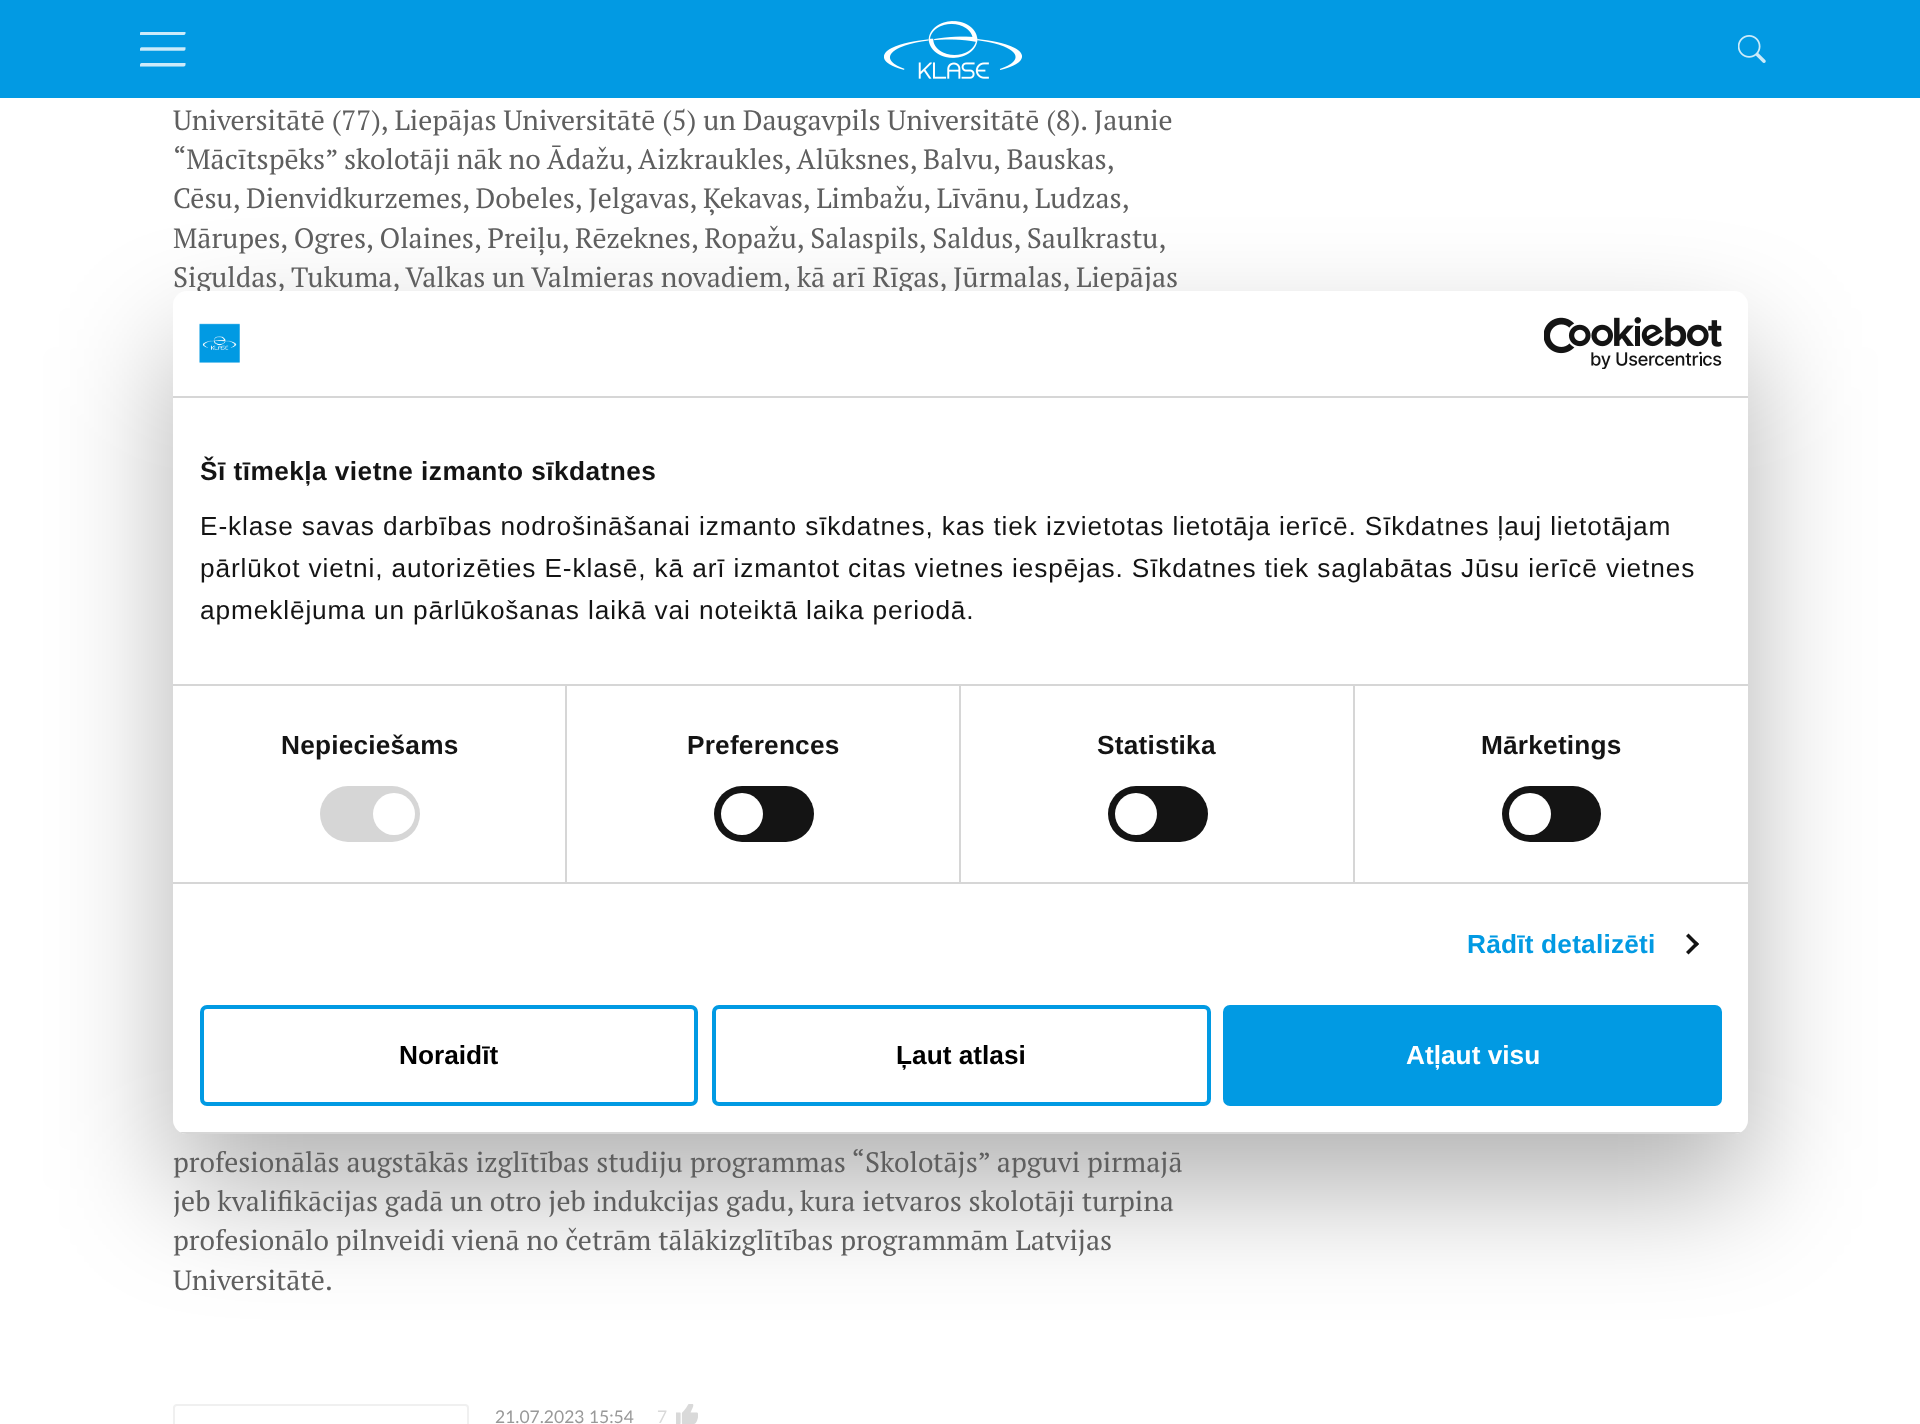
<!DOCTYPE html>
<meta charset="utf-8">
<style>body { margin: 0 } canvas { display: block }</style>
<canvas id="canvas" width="1920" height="1424"></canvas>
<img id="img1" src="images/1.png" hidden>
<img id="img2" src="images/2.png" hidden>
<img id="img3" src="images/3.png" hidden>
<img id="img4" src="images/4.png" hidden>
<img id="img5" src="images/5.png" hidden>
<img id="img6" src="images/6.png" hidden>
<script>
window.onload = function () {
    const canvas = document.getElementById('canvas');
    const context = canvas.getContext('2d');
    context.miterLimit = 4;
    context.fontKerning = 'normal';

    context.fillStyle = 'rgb(255, 255, 255)';
    context.fillRect(0, 0, 1920, 1424);
    context.fillStyle = 'rgb(2, 154, 227)';
    context.fillRect(0, 0, 1920, 98);
    context.drawImage(document.getElementById('img1'), 140, 32, 46, 35);
    context.drawImage(document.getElementById('img2'), 884, 21, 138, 58);
    context.drawImage(document.getElementById('img3'), 1738, 35, 28, 28);
    context.beginPath();
    context.roundRect(174, 1405, 294, 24, 3);
    context.strokeStyle = 'rgb(240, 240, 240)';
    context.lineWidth = 2;
    context.stroke();
    context.drawImage(document.getElementById('img4'), 676, 1404, 22, 20);
    context.fillStyle = 'rgba(0, 0, 0, 0.3)';
    context.filter = 'blur(59.5px)';
    context.beginPath();
    context.roundRect(173, 347, 1575, 843, 14);
    context.fill();
    context.filter = 'none';
    context.font = '28px PT Serif';
    context.fillStyle = 'rgb(95, 95, 95)';
    context.fillText('Universitātē (77), Liepājas Universitātē (5) un Daugavpils Universitātē (8). Jaunie', 173, 130);
    context.wordSpacing = '-0.25px';
    context.fillText('“Mācītspēks” skolotāji nāk no Ādažu, Aizkraukles, Alūksnes, Balvu, Bauskas,', 173, 169);
    context.fillText('Cēsu, Dienvidkurzemes, Dobeles, Jelgavas, Ķekavas, Limbažu, Līvānu, Ludzas,', 173, 208);
    context.fillText('Mārupes, Ogres, Olaines, Preiļu, Rēzeknes, Ropažu, Salaspils, Saldus, Saulkrastu,', 173, 248);
    context.wordSpacing = '0px';
    context.fillText('Siguldas, Tukuma, Valkas un Valmieras novadiem, kā arī Rīgas, Jūrmalas, Liepājas', 173, 287);
    context.fillText('profesionālās augstākās izglītības studiju programmas “Skolotājs” apguvi pirmajā', 173, 1172);
    context.fillText('jeb kvalifikācijas gadā un otro jeb indukcijas gadu, kura ietvaros skolotāji turpina', 173, 1211);
    context.fillText('profesionālo pilnveidi vienā no četrām tālākizglītības programmām Latvijas', 173, 1250);
    context.fillText('Universitātē.', 173, 1290);
    context.font = '17.5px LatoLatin';
    context.fillStyle = 'rgb(153, 153, 153)';
    context.fillText('21.07.2023 15:54', 495, 1423);
    context.fillStyle = 'rgb(217, 217, 217)';
    context.fillText('7', 657, 1423);
    context.fillStyle = 'rgb(255, 255, 255)';
    context.beginPath();
    context.roundRect(173, 291, 1575, 843, 14);
    context.fill();
    context.fillStyle = 'rgb(214, 214, 214)';
    context.fillRect(173, 396, 1575, 2);
    context.drawImage(document.getElementById('img5'), 199, 323, 41, 40);
    context.drawImage(document.getElementById('img6'), 1544, 317, 178, 52);
    context.fillRect(173, 684, 1575, 2);
    context.letterSpacing = '0.45px';
    context.font = 'bold 26.25px Liberation Sans';
    context.fillStyle = 'rgb(20, 20, 20)';
    context.fillText('Šī tīmekļa vietne izmanto sīkdatnes', 200, 480);
    context.letterSpacing = '0.88px';
    context.font = '26.25px Liberation Sans';
    context.fillText('E-klase savas darbības nodrošināšanai izmanto sīkdatnes, kas tiek izvietotas lietotāja ierīcē. Sīkdatnes ļauj lietotājam', 200, 535);
    context.fillText('pārlūkot vietni, autorizēties E-klasē, kā arī izmantot citas vietnes iespējas. Sīkdatnes tiek saglabātas Jūsu ierīcē vietnes', 200, 577);
    context.fillText('apmeklējuma un pārlūkošanas laikā vai noteiktā laika periodā.', 200, 619);
    context.fillStyle = 'rgb(214, 214, 214)';
    context.fillRect(173, 882, 1575, 2);
    context.fillRect(565, 686, 2, 196);
    context.letterSpacing = '0.2px';
    context.font = 'bold 26.25px Liberation Sans';
    context.fillStyle = 'rgb(20, 20, 20)';
    context.fillText('Nepieciešams', 281, 754);
    context.fillStyle = 'rgb(214, 214, 214)';
    context.beginPath();
    context.roundRect(320, 786, 100, 56, 28);
    context.fill();
    context.fillStyle = 'rgb(255, 255, 255)';
    context.beginPath();
    context.arc(394, 814, 21, 0, 2 * Math.PI);
    context.fill();
    context.fillStyle = 'rgb(214, 214, 214)';
    context.fillRect(959, 686, 2, 196);
    context.fillStyle = 'rgb(20, 20, 20)';
    context.fillText('Preferences', 687, 754);
    context.beginPath();
    context.roundRect(714, 786, 100, 56, 28);
    context.fill();
    context.fillStyle = 'rgb(255, 255, 255)';
    context.beginPath();
    context.arc(742, 814, 21, 0, 2 * Math.PI);
    context.fill();
    context.fillStyle = 'rgb(214, 214, 214)';
    context.fillRect(1353, 686, 2, 196);
    context.fillStyle = 'rgb(20, 20, 20)';
    context.fillText('Statistika', 1097, 754);
    context.beginPath();
    context.roundRect(1108, 786, 100, 56, 28);
    context.fill();
    context.fillStyle = 'rgb(255, 255, 255)';
    context.beginPath();
    context.arc(1136, 814, 21, 0, 2 * Math.PI);
    context.fill();
    context.fillStyle = 'rgb(20, 20, 20)';
    context.fillText('Mārketings', 1481, 754);
    context.beginPath();
    context.roundRect(1502, 786, 99, 56, 28);
    context.fill();
    context.fillStyle = 'rgb(255, 255, 255)';
    context.beginPath();
    context.arc(1530, 814, 21, 0, 2 * Math.PI);
    context.fill();
    context.fillStyle = 'rgb(2, 154, 227)';
    context.fillText('Rādīt detalizēti', 1467, 953);
    context.fillStyle = 'rgb(20, 20, 20)';
    context.beginPath();
    context.moveTo(1688.5, 933.5);
    context.lineTo(1699, 944);
    context.lineTo(1696.5, 946.5);
    context.lineTo(1686, 936);
    context.closePath();
    context.fill();
    context.beginPath();
    context.moveTo(1696.5, 941.5);
    context.lineTo(1699, 944);
    context.lineTo(1688.5, 954.5);
    context.lineTo(1686, 952);
    context.closePath();
    context.fill();
    context.save();
    context.beginPath();
    context.roundRect(173, 291, 1575, 843, 14);
    context.clip();
    context.fillStyle = 'rgb(214, 214, 214)';
    context.fillRect(173, 1132, 1575, 2);
    context.restore();
    context.beginPath();
    context.roundRect(202, 1007, 494, 97, 5);
    context.strokeStyle = 'rgb(1, 154, 227)';
    context.lineWidth = 4;
    context.stroke();
    context.letterSpacing = '0px';
    context.fillStyle = 'rgb(0, 0, 0)';
    context.fillText('Noraidīt', 399, 1064);
    context.beginPath();
    context.roundRect(714, 1007, 495, 97, 5);
    context.stroke();
    context.fillText('Ļaut atlasi', 896, 1064);
    context.fillStyle = 'rgb(1, 154, 227)';
    context.beginPath();
    context.roundRect(1225, 1007, 495, 97, 5);
    context.fill();
    context.stroke();
    context.fillStyle = 'rgb(255, 255, 255)';
    context.fillText('Atļaut visu', 1406, 1064);
};
</script>
